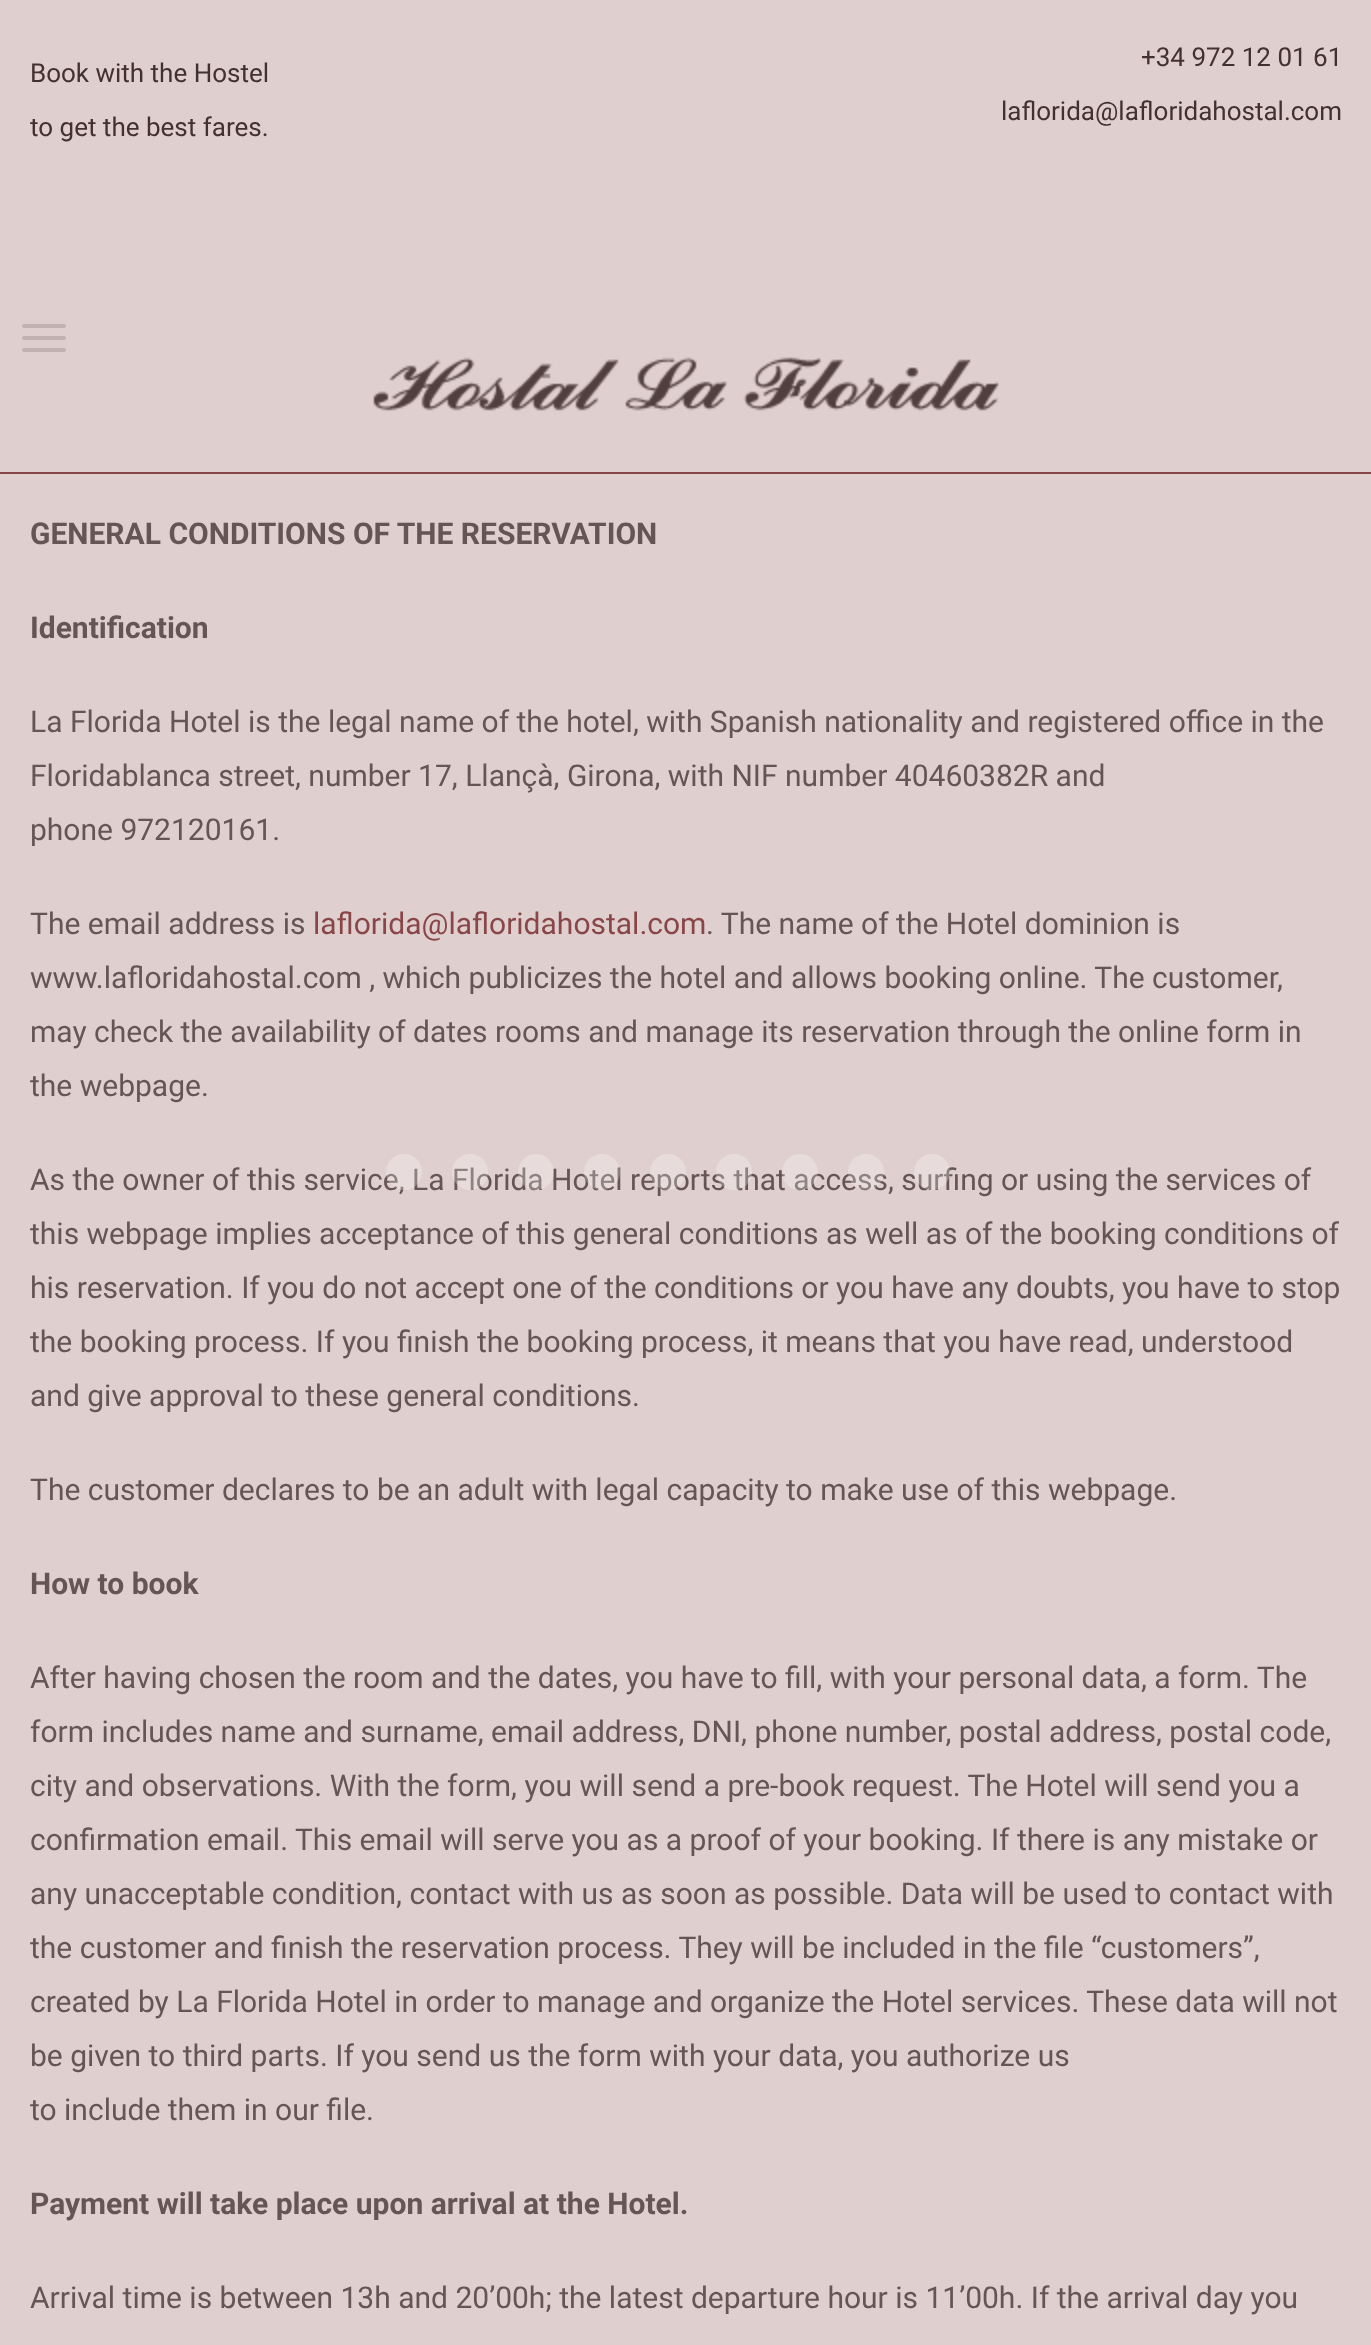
<!DOCTYPE html>
<meta charset="utf-8">
<style>body { margin: 0 } canvas { display: block }</style>
<canvas id="canvas" width="1371" height="2345"></canvas>
<img id="img1" src="images/1.png" hidden>
<script>
window.onload = function () {
    const canvas = document.getElementById('canvas');
    const context = canvas.getContext('2d');
    context.miterLimit = 4;
    context.fontKerning = 'normal';

    context.fillStyle = 'rgb(224, 207, 207)';
    context.fillRect(0, 0, 1371, 2345);
    context.fillStyle = 'rgb(195, 178, 179)';
    context.beginPath();
    context.roundRect(22, 324, 44, 4, 2);
    context.fill();
    context.beginPath();
    context.roundRect(22, 336, 44, 4, 2);
    context.fill();
    context.beginPath();
    context.roundRect(22, 348, 44, 4, 2);
    context.fill();
    context.fillStyle = 'rgb(137, 70, 72)';
    context.fillRect(0, 472, 1371, 2);
    context.drawImage(document.getElementById('img1'), 373, 357, 626, 54);
    context.font = '26px Roboto';
    context.fillStyle = 'rgb(67, 49, 50)';
    context.fillText('Book with the Hostel', 30, 82);
    context.fillText('to get the best fares.', 30, 136);
    context.fillText('+34 972 12 01 61', 1141, 66);
    context.fillText('laflorida@lafloridahostal.com', 1001, 120);
    context.font = 'bold 30px Roboto';
    context.fillStyle = 'rgb(102, 85, 85)';
    context.fillText('GENERAL CONDITIONS OF THE RESERVATION', 30, 544);
    context.fillText('Identification', 30, 638);
    context.font = '30px Roboto';
    context.fillText('La Florida Hotel is the legal name of the hotel, with Spanish nationality and registered office in the', 30, 732);
    context.fillText('Floridablanca street, number 17, Llançà, Girona, with NIF number 40460382R and', 30, 786);
    context.fillText('phone 972120161.', 30, 840);
    context.fillText('The email address is', 30, 934);
    context.fillStyle = 'rgb(137, 70, 72)';
    context.fillText('laflorida@lafloridahostal.com', 313, 934);
    context.fillStyle = 'rgb(102, 85, 85)';
    context.fillText('. The name of the Hotel dominion is', 706, 934);
    context.fillText('www.lafloridahostal.com , which publicizes the hotel and allows booking online. The customer,', 30, 988);
    context.fillText('may check the availability of dates rooms and manage its reservation through the online form in', 30, 1042);
    context.fillText('the webpage.', 30, 1096);
    context.fillText('As the owner of this service, La Florida Hotel reports that access, surfing or using the services of', 30, 1190);
    context.fillText('this webpage implies acceptance of this general conditions as well as of the booking conditions of', 30, 1244);
    context.fillText('his reservation. If you do not accept one of the conditions or you have any doubts, you have to stop', 30, 1298);
    context.fillText('the booking process. If you finish the booking process, it means that you have read, understood', 30, 1352);
    context.fillText('and give approval to these general conditions.', 30, 1406);
    context.fillText('The customer declares to be an adult with legal capacity to make use of this webpage.', 30, 1500);
    context.font = 'bold 30px Roboto';
    context.fillText('How to book', 30, 1594);
    context.font = '30px Roboto';
    context.fillText('After having chosen the room and the dates, you have to fill, with your personal data, a form. The', 30, 1688);
    context.fillText('form includes name and surname, email address, DNI, phone number, postal address, postal code,', 30, 1742);
    context.fillText('city and observations. With the form, you will send a pre-book request. The Hotel will send you a', 30, 1796);
    context.fillText('confirmation email. This email will serve you as a proof of your booking. If there is any mistake or', 30, 1850);
    context.fillText('any unacceptable condition, contact with us as soon as possible. Data will be used to contact with', 30, 1904);
    context.fillText('the customer and finish the reservation process. They will be included in the file “customers”,', 30, 1958);
    context.fillText('created by La Florida Hotel in order to manage and organize the Hotel services. These data will not', 30, 2012);
    context.fillText('be given to third parts. If you send us the form with your data, you authorize us', 30, 2066);
    context.fillText('to include them in our file.', 30, 2120);
    context.font = 'bold 30px Roboto';
    context.fillText('Payment will take place upon arrival at the Hotel.', 30, 2214);
    context.font = '30px Roboto';
    context.fillText('Arrival time is between 13h and 20’00h; the latest departure hour is 11’00h. If the arrival day you', 30, 2308);
    context.fillStyle = 'rgba(255, 255, 255, 0.26)';
    context.beginPath();
    context.arc(404, 1172, 18, 0, 2 * Math.PI);
    context.fill();
    context.beginPath();
    context.arc(470, 1172, 18, 0, 2 * Math.PI);
    context.fill();
    context.beginPath();
    context.arc(536, 1172, 18, 0, 2 * Math.PI);
    context.fill();
    context.beginPath();
    context.arc(602, 1172, 18, 0, 2 * Math.PI);
    context.fill();
    context.beginPath();
    context.arc(668, 1172, 18, 0, 2 * Math.PI);
    context.fill();
    context.beginPath();
    context.arc(734, 1172, 18, 0, 2 * Math.PI);
    context.fill();
    context.beginPath();
    context.arc(800, 1172, 18, 0, 2 * Math.PI);
    context.fill();
    context.beginPath();
    context.arc(866, 1172, 18, 0, 2 * Math.PI);
    context.fill();
    context.beginPath();
    context.arc(932, 1172, 18, 0, 2 * Math.PI);
    context.fill();
};
</script>
